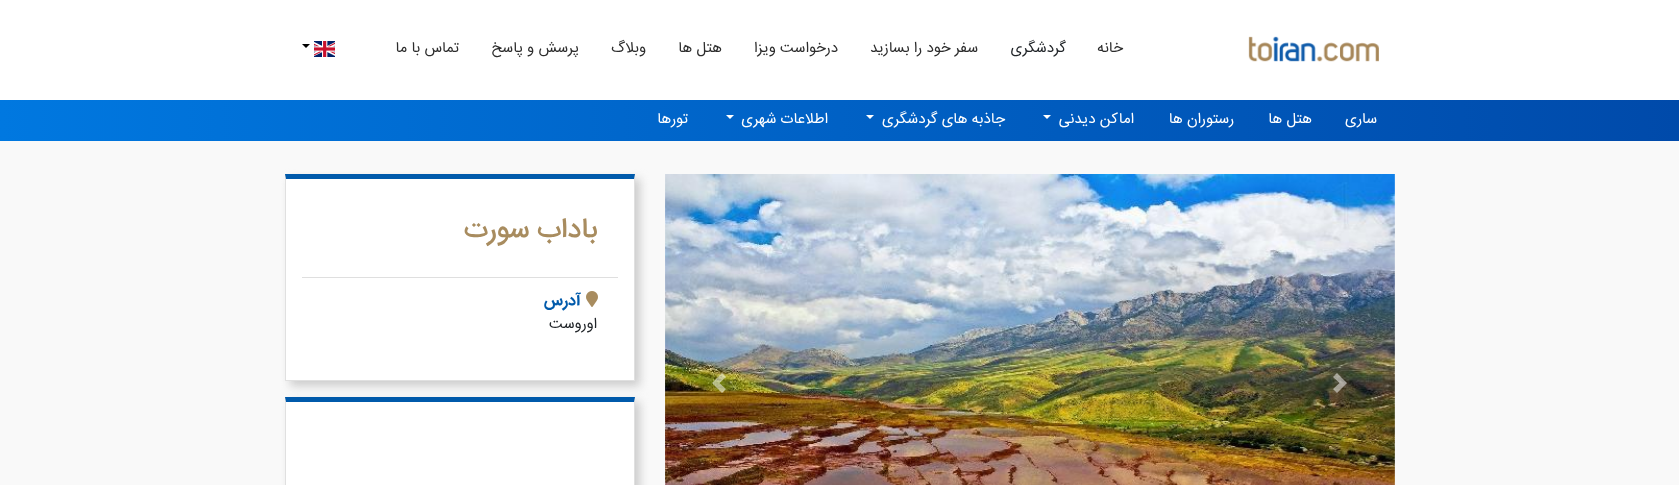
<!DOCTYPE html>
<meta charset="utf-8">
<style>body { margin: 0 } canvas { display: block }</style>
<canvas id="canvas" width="1679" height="485"></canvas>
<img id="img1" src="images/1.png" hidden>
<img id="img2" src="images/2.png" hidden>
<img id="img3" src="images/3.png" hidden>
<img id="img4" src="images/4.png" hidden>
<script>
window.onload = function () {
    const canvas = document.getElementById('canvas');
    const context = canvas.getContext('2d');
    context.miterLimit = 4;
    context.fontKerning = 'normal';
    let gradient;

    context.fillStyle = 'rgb(249, 249, 249)';
    context.fillRect(0, 0, 1679, 485);
    context.fillStyle = 'rgb(255, 255, 255)';
    context.fillRect(0, 0, 1679, 100);
    context.drawImage(document.getElementById('img1'), 1248, 36, 131, 26);
    context.drawImage(document.getElementById('img2'), 314, 41, 21, 16);
    context.fillStyle = 'rgb(0, 0, 0)';
    context.beginPath();
    context.moveTo(302, 44);
    context.lineTo(310, 44);
    context.lineTo(306, 48);
    context.closePath();
    context.fill();
    gradient = context.createLinearGradient(0, 121, 1679, 120);
    gradient.addColorStop(0, 'rgb(0, 120, 224)');
    gradient.addColorStop(1, 'rgb(0, 74, 170)');
    context.fillStyle = gradient;
    context.fillRect(0, 100, 1679, 41);
    context.fillStyle = 'rgb(255, 255, 255)';
    context.beginPath();
    context.moveTo(1043, 115);
    context.lineTo(1051, 115);
    context.lineTo(1047, 119);
    context.closePath();
    context.fill();
    context.beginPath();
    context.moveTo(866, 115);
    context.lineTo(874, 115);
    context.lineTo(870, 119);
    context.closePath();
    context.fill();
    context.beginPath();
    context.moveTo(726, 115);
    context.lineTo(734, 115);
    context.lineTo(730, 119);
    context.closePath();
    context.fill();
    context.drawImage(document.getElementById('img3'), 665, 174, 730, 311);
    context.fillStyle = 'rgba(255, 255, 255, 0.5)';
    context.beginPath();
    context.moveTo(1337, 373);
    context.lineTo(1333, 377);
    context.lineTo(1339.5, 383);
    context.lineTo(1333, 389);
    context.lineTo(1337, 393);
    context.lineTo(1347, 383);
    context.closePath();
    context.fill();
    context.beginPath();
    context.moveTo(722, 373);
    context.lineTo(712, 383);
    context.lineTo(722, 393);
    context.lineTo(726, 389);
    context.lineTo(719.5, 383);
    context.lineTo(726, 377);
    context.closePath();
    context.fill();
    context.fillStyle = 'rgb(204, 204, 204)';
    context.filter = 'blur(5px)';
    context.beginPath();
    context.rect(290, 179, 350, 207);
    context.fill();
    context.filter = 'none';
    context.fillStyle = 'rgb(255, 255, 255)';
    context.fillRect(285, 174, 350, 207);
    context.fillStyle = 'rgb(0, 90, 171)';
    context.beginPath();
    context.moveTo(285, 174);
    context.lineTo(635, 174);
    context.lineTo(634, 179);
    context.lineTo(286, 179);
    context.closePath();
    context.fill();
    context.fillStyle = 'rgba(0, 0, 0, 0.12)';
    context.beginPath();
    context.moveTo(635, 174);
    context.lineTo(635, 381);
    context.lineTo(634, 380);
    context.lineTo(634, 179);
    context.closePath();
    context.fill();
    context.beginPath();
    context.moveTo(635, 381);
    context.lineTo(285, 381);
    context.lineTo(286, 380);
    context.lineTo(634, 380);
    context.closePath();
    context.fill();
    context.beginPath();
    context.moveTo(285, 381);
    context.lineTo(285, 174);
    context.lineTo(286, 179);
    context.lineTo(286, 380);
    context.closePath();
    context.fill();
    context.fillStyle = 'rgb(223, 223, 223)';
    context.fillRect(302, 277, 316, 1);
    context.drawImage(document.getElementById('img4'), 586, 291, 12, 16);
    context.fillStyle = 'rgb(204, 204, 204)';
    context.filter = 'blur(5px)';
    context.beginPath();
    context.rect(290, 402, 350, 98);
    context.fill();
    context.filter = 'none';
    context.fillStyle = 'rgb(255, 255, 255)';
    context.fillRect(285, 397, 350, 88);
    context.fillStyle = 'rgb(0, 90, 171)';
    context.beginPath();
    context.moveTo(285, 397);
    context.lineTo(635, 397);
    context.lineTo(634, 402);
    context.lineTo(286, 402);
    context.closePath();
    context.fill();
    context.fillStyle = 'rgba(0, 0, 0, 0.12)';
    context.beginPath();
    context.moveTo(635, 397);
    context.lineTo(635, 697);
    context.lineTo(634, 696);
    context.lineTo(634, 402);
    context.closePath();
    context.fill();
    context.beginPath();
    context.moveTo(285, 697);
    context.lineTo(285, 397);
    context.lineTo(286, 402);
    context.lineTo(286, 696);
    context.closePath();
    context.fill();
    context.direction = 'rtl';
    context.font = '15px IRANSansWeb';
    context.fillStyle = 'rgb(45, 45, 45)';
    context.fillText('خانه', 1123, 52);
    context.fillStyle = 'rgb(33, 37, 41)';
    context.fillText('گردشگری', 1066, 52);
    context.fillStyle = 'rgb(45, 45, 45)';
    context.fillText('سفر خود را بسازید', 978, 52);
    context.fillText('درخواست ویزا', 838, 52);
    context.fillText('هتل ها', 722, 52);
    context.fillText('وبلاگ', 646, 52);
    context.fillText('پرسش و پاسخ', 579, 52);
    context.fillText('تماس با ما', 459, 52);
    context.fillStyle = 'rgb(255, 255, 255)';
    context.fillText('ساری', 1377, 123);
    context.fillText('هتل ها', 1312, 123);
    context.fillText('رستوران ها', 1234, 123);
    context.fillText('اماکن دیدنی', 1134, 123);
    context.fillText('جاذبه های گردشگری', 1005, 123);
    context.fillText('اطلاعات شهری', 828, 123);
    context.fillText('تورها', 688, 123);
    context.font = '500 28px IRANSansWeb';
    context.fillStyle = 'rgb(168, 140, 95)';
    context.fillText('باداب سورت', 597, 237);
    context.font = 'bold 16px IRANSansWeb';
    context.fillStyle = 'rgb(0, 90, 171)';
    context.fillText('آدرس', 581, 305);
    context.font = '15px IRANSansWeb';
    context.fillStyle = 'rgb(33, 37, 41)';
    context.fillText('اوروست', 597, 328);
};
</script>
